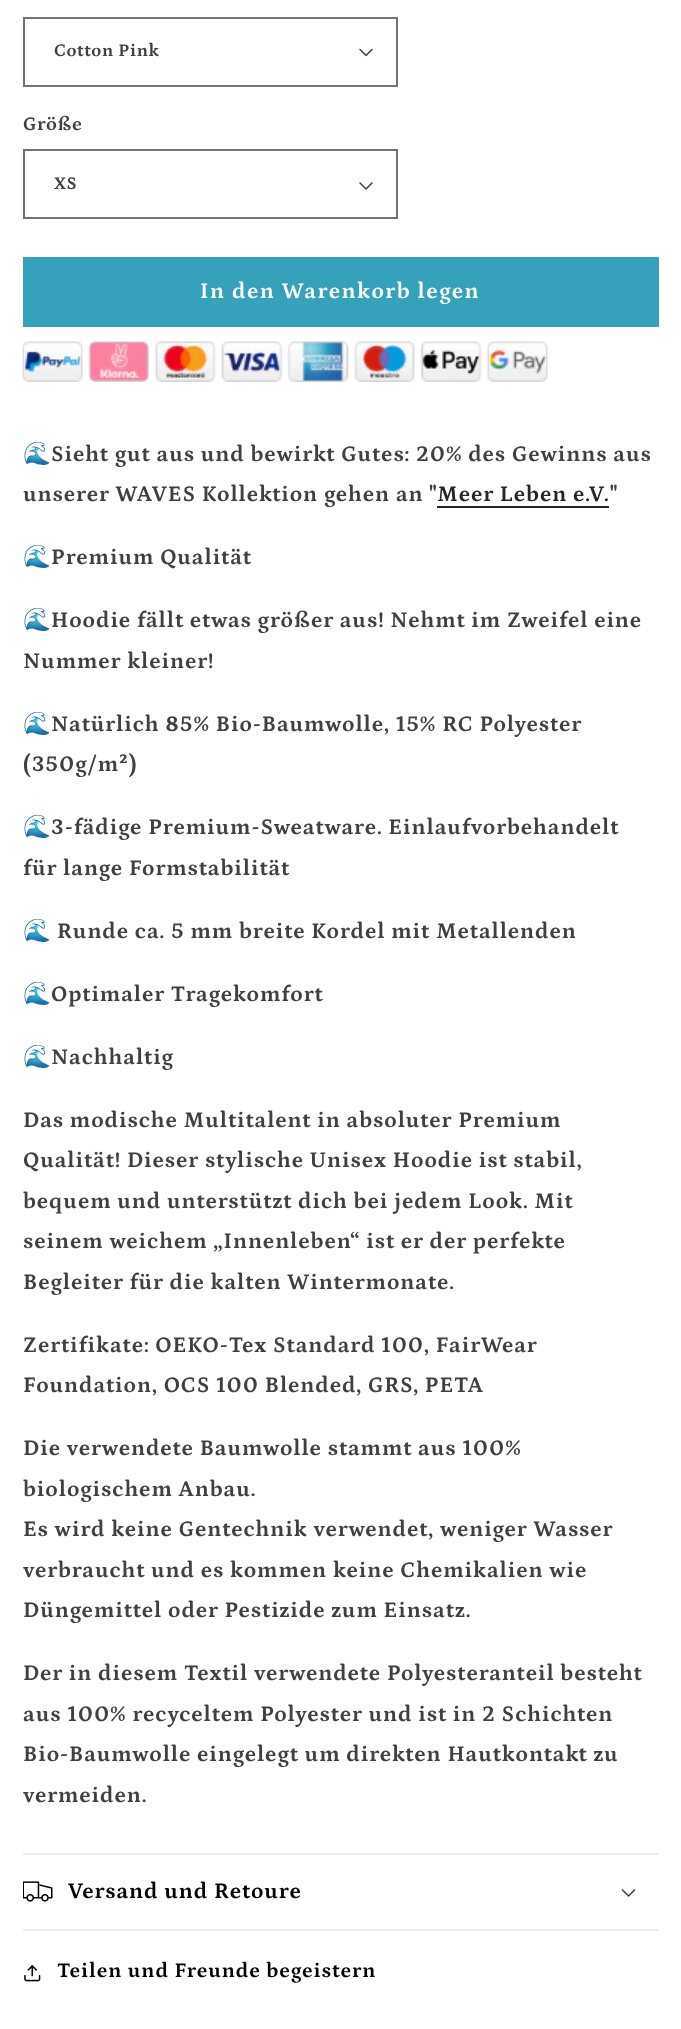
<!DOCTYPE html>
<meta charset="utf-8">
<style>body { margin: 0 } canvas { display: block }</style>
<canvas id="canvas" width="681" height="2029"></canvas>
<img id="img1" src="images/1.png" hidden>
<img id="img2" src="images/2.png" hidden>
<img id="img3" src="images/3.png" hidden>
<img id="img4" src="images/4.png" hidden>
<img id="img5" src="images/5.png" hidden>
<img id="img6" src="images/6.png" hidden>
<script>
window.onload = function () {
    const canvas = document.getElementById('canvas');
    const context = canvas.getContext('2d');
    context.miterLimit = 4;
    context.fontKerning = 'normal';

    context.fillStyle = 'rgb(255, 255, 255)';
    context.fillRect(0, 0, 681, 2029);
    context.drawImage(document.getElementById('img1'), 359, 48, 14, 9);
    context.strokeStyle = 'rgb(115, 115, 115)';
    context.lineWidth = 2;
    context.strokeRect(24, 18, 373, 68);
    context.drawImage(document.getElementById('img2'), 359, 182, 14, 8);
    context.strokeRect(24, 150, 373, 68);
    context.fillStyle = 'rgb(54, 161, 186)';
    context.fillRect(23, 257, 636, 70);
    context.drawImage(document.getElementById('img3'), 22, 341, 526, 41);
    context.fillStyle = 'rgb(38, 38, 38)';
    context.fillRect(437, 506, 172, 2);
    context.fillStyle = 'rgb(235, 235, 235)';
    context.fillRect(23, 1853, 636, 2);
    context.fillRect(23, 1929, 636, 2);
    context.drawImage(document.getElementById('img4'), 23, 1881, 30, 21);
    context.drawImage(document.getElementById('img5'), 621, 1889, 15, 8);
    context.drawImage(document.getElementById('img6'), 24, 1965, 17, 17);
    context.letterSpacing = '0.6px';
    context.font = 'bold 18px Petrona';
    context.fillStyle = 'rgb(64, 64, 64)';
    context.fillText('Cotton Pink', 54, 56);
    context.font = 'bold 19.5px Petrona';
    context.fillText('Größe', 23, 130);
    context.font = 'bold 18px Petrona';
    context.fillText('XS', 54, 189);
    context.letterSpacing = '1.5px';
    context.font = 'bold 22.5px Petrona';
    context.fillStyle = 'rgb(255, 255, 255)';
    context.fillText('In den Warenkorb legen', 200, 298);
    context.letterSpacing = '0.9px';
    context.font = 'bold 22.5px Noto Color Emoji';
    context.fillStyle = 'rgb(64, 64, 64)';
    context.fillText('🌊', 23, 461);
    context.font = 'bold 22.5px Petrona';
    context.fillText('Sieht gut aus und bewirkt Gutes: 20% des Gewinns aus', 51, 461);
    context.fillText('unserer WAVES Kollektion gehen an "', 23, 501);
    context.fillStyle = 'rgb(38, 38, 38)';
    context.fillText('Meer Leben e.V.', 437, 501);
    context.fillStyle = 'rgb(64, 64, 64)';
    context.fillText('"', 610, 501);
    context.font = 'bold 22.5px Noto Color Emoji';
    context.fillText('🌊', 23, 564);
    context.font = 'bold 22.5px Petrona';
    context.fillText('Premium Qualität', 51, 564);
    context.font = 'bold 22.5px Noto Color Emoji';
    context.fillText('🌊', 23, 627);
    context.font = 'bold 22.5px Petrona';
    context.fillText('Hoodie fällt etwas größer aus! Nehmt im Zweifel eine', 51, 627);
    context.fillText('Nummer kleiner!', 23, 668);
    context.font = 'bold 22.5px Noto Color Emoji';
    context.fillText('🌊', 23, 731);
    context.font = 'bold 22.5px Petrona';
    context.fillText('Natürlich 85% Bio-Baumwolle, 15% RC Polyester', 51, 731);
    context.fillText('(350g/m²)', 23, 771);
    context.font = 'bold 22.5px Noto Color Emoji';
    context.fillText('🌊', 23, 834);
    context.font = 'bold 22.5px Petrona';
    context.fillText('3-fädige Premium-Sweatware. Einlaufvorbehandelt', 51, 834);
    context.fillText('für lange Formstabilität', 23, 875);
    context.font = 'bold 22.5px Noto Color Emoji';
    context.fillText('🌊', 23, 938);
    context.font = 'bold 22.5px Petrona';
    context.fillText('Runde ca. 5 mm breite Kordel mit Metallenden', 57, 938);
    context.font = 'bold 22.5px Noto Color Emoji';
    context.fillText('🌊', 23, 1001);
    context.font = 'bold 22.5px Petrona';
    context.fillText('Optimaler Tragekomfort', 51, 1001);
    context.font = 'bold 22.5px Noto Color Emoji';
    context.fillText('🌊', 23, 1064);
    context.font = 'bold 22.5px Petrona';
    context.fillText('Nachhaltig', 51, 1064);
    context.fillText('Das modische Multitalent in absoluter Premium', 23, 1127);
    context.fillText('Qualität! Dieser stylische Unisex Hoodie ist stabil,', 23, 1167);
    context.fillText('bequem und unterstützt dich bei jedem Look. Mit', 23, 1208);
    context.fillText('seinem weichem „Innenleben“ ist er der perfekte', 23, 1248);
    context.fillText('Begleiter für die kalten Wintermonate.', 23, 1289);
    context.fillText('Zertifikate: OEKO-Tex Standard 100, FairWear', 23, 1352);
    context.fillText('Foundation, OCS 100 Blended, GRS, PETA', 23, 1392);
    context.fillText('Die verwendete Baumwolle stammt aus 100%', 23, 1455);
    context.fillText('biologischem Anbau.', 23, 1496);
    context.fillText('Es wird keine Gentechnik verwendet, weniger Wasser', 23, 1536);
    context.fillText('verbraucht und es kommen keine Chemikalien wie', 23, 1577);
    context.fillText('Düngemittel oder Pestizide zum Einsatz.', 23, 1617);
    context.fillText('Der in diesem Textil verwendete Polyesteranteil besteht', 23, 1680);
    context.fillText('aus 100% recyceltem Polyester und ist in 2 Schichten', 23, 1721);
    context.fillText('Bio-Baumwolle eingelegt um direkten Hautkontakt zu', 23, 1761);
    context.fillText('vermeiden.', 23, 1802);
    context.fillStyle = 'rgb(0, 0, 0)';
    context.fillText('Versand und Retoure', 68, 1898);
    context.font = 'bold 21px Petrona';
    context.fillText('Teilen und Freunde begeistern', 57, 1977);
};
</script>
